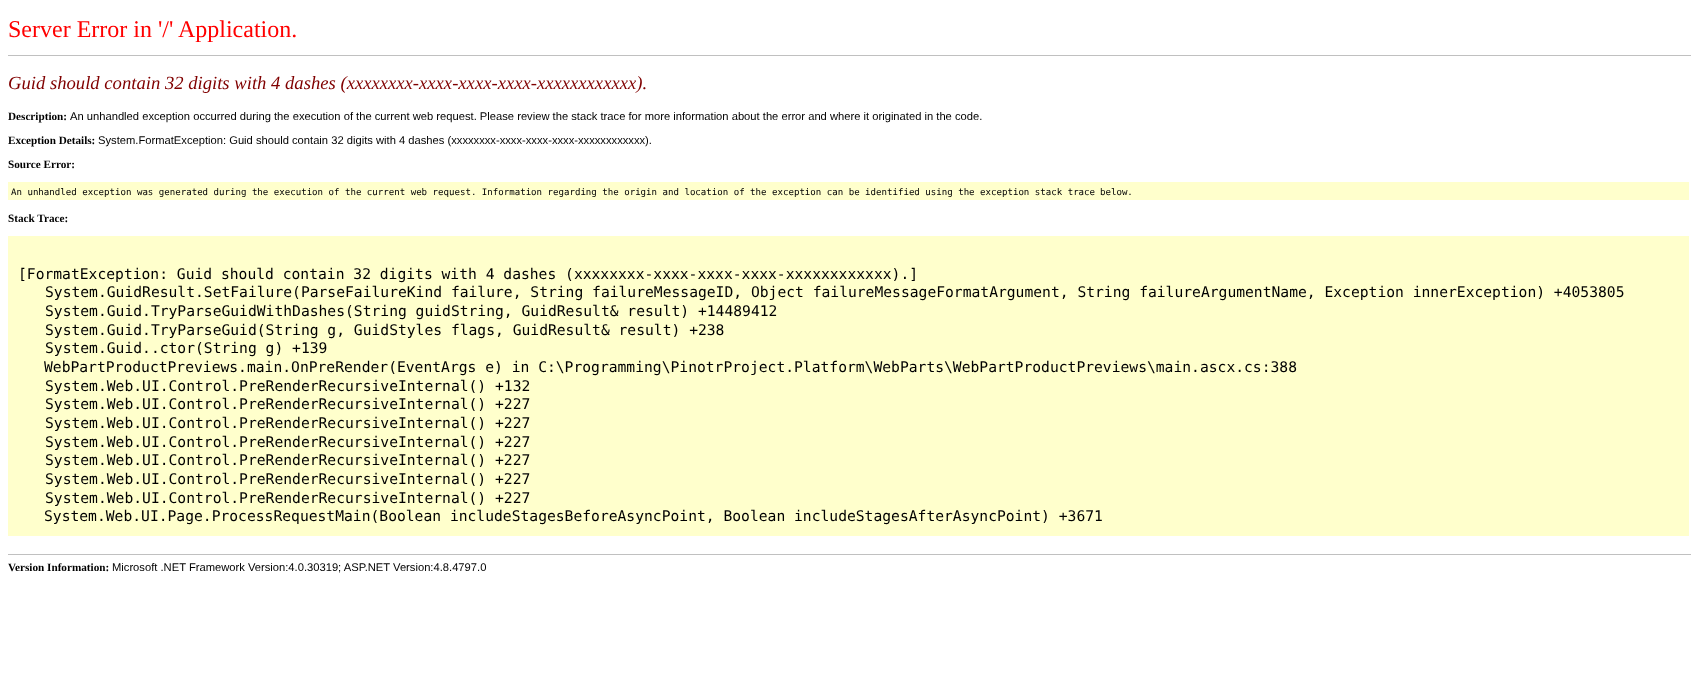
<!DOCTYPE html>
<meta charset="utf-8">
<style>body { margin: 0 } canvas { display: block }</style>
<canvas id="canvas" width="1697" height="678"></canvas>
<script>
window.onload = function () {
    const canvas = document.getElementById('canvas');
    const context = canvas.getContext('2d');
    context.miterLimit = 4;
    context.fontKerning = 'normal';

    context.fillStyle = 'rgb(255, 255, 255)';
    context.fillRect(0, 0, 1697, 678);
    context.fillStyle = 'rgb(192, 192, 192)';
    context.fillRect(8, 55, 1683, 1);
    context.fillStyle = 'rgb(255, 255, 204)';
    context.fillRect(8, 182, 1681, 18);
    context.fillRect(8, 236, 1681, 300);
    context.fillStyle = 'rgb(192, 192, 192)';
    context.fillRect(8, 554, 1683, 1);
    context.font = '24px Liberation Serif';
    context.fillStyle = 'rgb(255, 0, 0)';
    context.fillText('Server Error in \'/\' Application.', 8, 37);
    context.font = 'italic 18.65px Liberation Serif';
    context.fillStyle = 'rgb(128, 0, 0)';
    context.fillText('Guid should contain 32 digits with 4 dashes (xxxxxxxx-xxxx-xxxx-xxxx-xxxxxxxxxxxx).', 8, 89);
    context.font = 'bold 11.2px Liberation Serif';
    context.fillStyle = 'rgb(0, 0, 0)';
    context.fillText('Description:', 8, 120);
    context.font = '11.2px Liberation Sans';
    context.fillText('An unhandled exception occurred during the execution of the current web request. Please review the stack trace for more information about the error and where it originated in the code.', 70, 120);
    context.font = 'bold 11.2px Liberation Serif';
    context.fillText('Exception Details:', 8, 144);
    context.font = '11.2px Liberation Sans';
    context.fillText('System.FormatException: Guid should contain 32 digits with 4 dashes (xxxxxxxx-xxxx-xxxx-xxxx-xxxxxxxxxxxx).', 98, 144);
    context.font = 'bold 11.2px Liberation Serif';
    context.fillText('Source Error:', 8, 168);
    context.font = '9.1px DejaVu Sans Mono';
    context.fillText('An unhandled exception was generated during the execution of the current web request. Information regarding the origin and location of the exception can be identified using the exception stack trace', 11, 195);
    context.fillText('below.', 1100, 195);
    context.font = 'bold 11.2px Liberation Serif';
    context.fillText('Stack Trace:', 8, 222);
    context.font = '14.67px DejaVu Sans Mono';
    context.fillText('[FormatException: Guid should contain 32 digits with 4 dashes (xxxxxxxx-xxxx-xxxx-xxxx-xxxxxxxxxxxx).]', 18, 279);
    context.fillText('System.GuidResult.SetFailure(ParseFailureKind failure, String failureMessageID, Object failureMessageFormatArgument, String failureArgumentName, Exception innerException) +4053805', 45, 297);
    context.fillText('System.Guid.TryParseGuidWithDashes(String guidString, GuidResult& result) +14489412', 45, 316);
    context.fillText('System.Guid.TryParseGuid(String g, GuidStyles flags, GuidResult& result) +238', 45, 335);
    context.fillText('System.Guid..ctor(String g) +139', 45, 353);
    context.fillText('WebPartProductPreviews.main.OnPreRender(EventArgs e) in C:\\Programming\\PinotrProject.Platform\\WebParts\\WebPartProductPreviews\\main.ascx.cs:388', 44, 372);
    context.fillText('System.Web.UI.Control.PreRenderRecursiveInternal() +132', 45, 391);
    context.fillText('System.Web.UI.Control.PreRenderRecursiveInternal() +227', 45, 409);
    context.fillText('System.Web.UI.Control.PreRenderRecursiveInternal() +227', 45, 428);
    context.fillText('System.Web.UI.Control.PreRenderRecursiveInternal() +227', 45, 447);
    context.fillText('System.Web.UI.Control.PreRenderRecursiveInternal() +227', 45, 465);
    context.fillText('System.Web.UI.Control.PreRenderRecursiveInternal() +227', 45, 484);
    context.fillText('System.Web.UI.Control.PreRenderRecursiveInternal() +227', 45, 503);
    context.fillText('System.Web.UI.Page.ProcessRequestMain(Boolean includeStagesBeforeAsyncPoint, Boolean includeStagesAfterAsyncPoint) +3671', 44, 521);
    context.font = 'bold 11.2px Liberation Serif';
    context.fillText('Version Information:', 8, 571);
    context.font = '11.2px Liberation Sans';
    context.fillText('Microsoft .NET Framework Version:4.0.30319; ASP.NET Version:4.8.4797.0', 112, 571);
};
</script>
